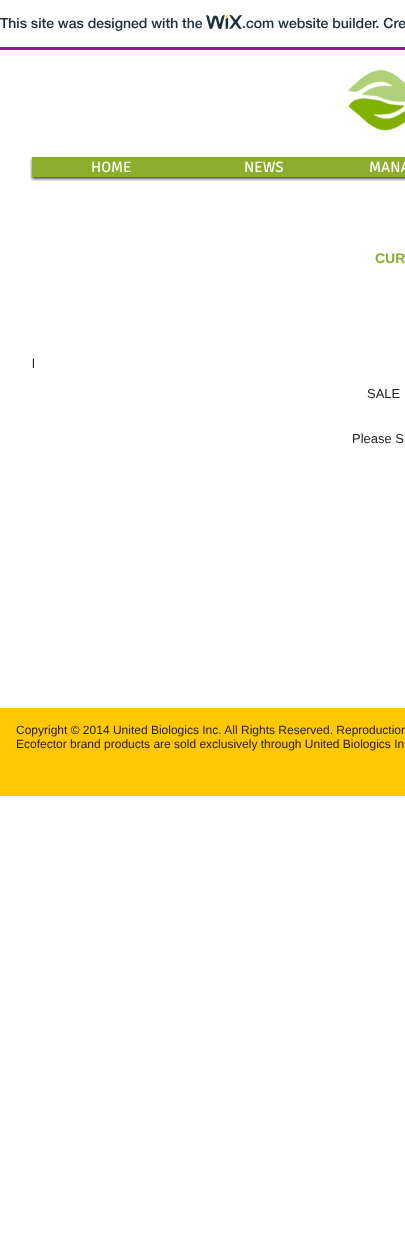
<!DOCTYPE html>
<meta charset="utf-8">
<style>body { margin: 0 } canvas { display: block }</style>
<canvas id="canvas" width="405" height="1243"></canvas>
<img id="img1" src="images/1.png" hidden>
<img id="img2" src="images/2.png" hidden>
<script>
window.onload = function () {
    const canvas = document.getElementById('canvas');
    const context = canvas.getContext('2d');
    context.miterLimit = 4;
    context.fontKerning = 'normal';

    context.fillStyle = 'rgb(255, 255, 255)';
    context.fillRect(0, 0, 405, 1243);
    context.fillStyle = 'rgb(160, 19, 142)';
    context.fillRect(0, 47, 405, 3);
    context.drawImage(document.getElementById('img1'), 206, 15, 36, 15);
    context.drawImage(document.getElementById('img2'), 348, 69, 57, 62);
    context.fillStyle = 'rgba(0, 0, 0, 0.7)';
    context.filter = 'blur(1.5px)';
    context.beginPath();
    context.rect(32, 159, 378, 20);
    context.fill();
    context.filter = 'none';
    context.fillStyle = 'rgb(141, 173, 45)';
    context.fillRect(32, 157, 373, 20);
    context.fillStyle = 'rgb(255, 200, 2)';
    context.fillRect(0, 708, 405, 88);
    context.font = '500 14px "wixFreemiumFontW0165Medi"';
    context.fillStyle = 'rgb(32, 48, 60)';
    context.fillText('This site was designed with the', 0, 28);
    context.fillText('.com website builder. Cre', 242, 28);
    context.font = '15px Signika';
    context.fillStyle = 'rgb(255, 255, 255)';
    context.fillText('HOME', 91, 172);
    context.fillText('NEWS', 244, 172);
    context.fillText('MANA', 369, 172);
    context.font = 'bold 14px Liberation Sans';
    context.fillStyle = 'rgb(141, 173, 45)';
    context.fillText('CUR', 375, 263);
    context.font = '13px Liberation Sans';
    context.fillStyle = 'rgb(34, 27, 35)';
    context.fillText('l', 32, 368);
    context.fillText('SALE', 367, 398);
    context.fillText('Please S', 352, 443);
    context.font = '12px Liberation Sans';
    context.fillText('Copyright © 2014 United Biologics Inc. All Rights Reserved. Reproduction', 16, 734);
    context.fillText('Ecofector brand products are sold exclusively through United Biologics In', 16, 748);
};
</script>
